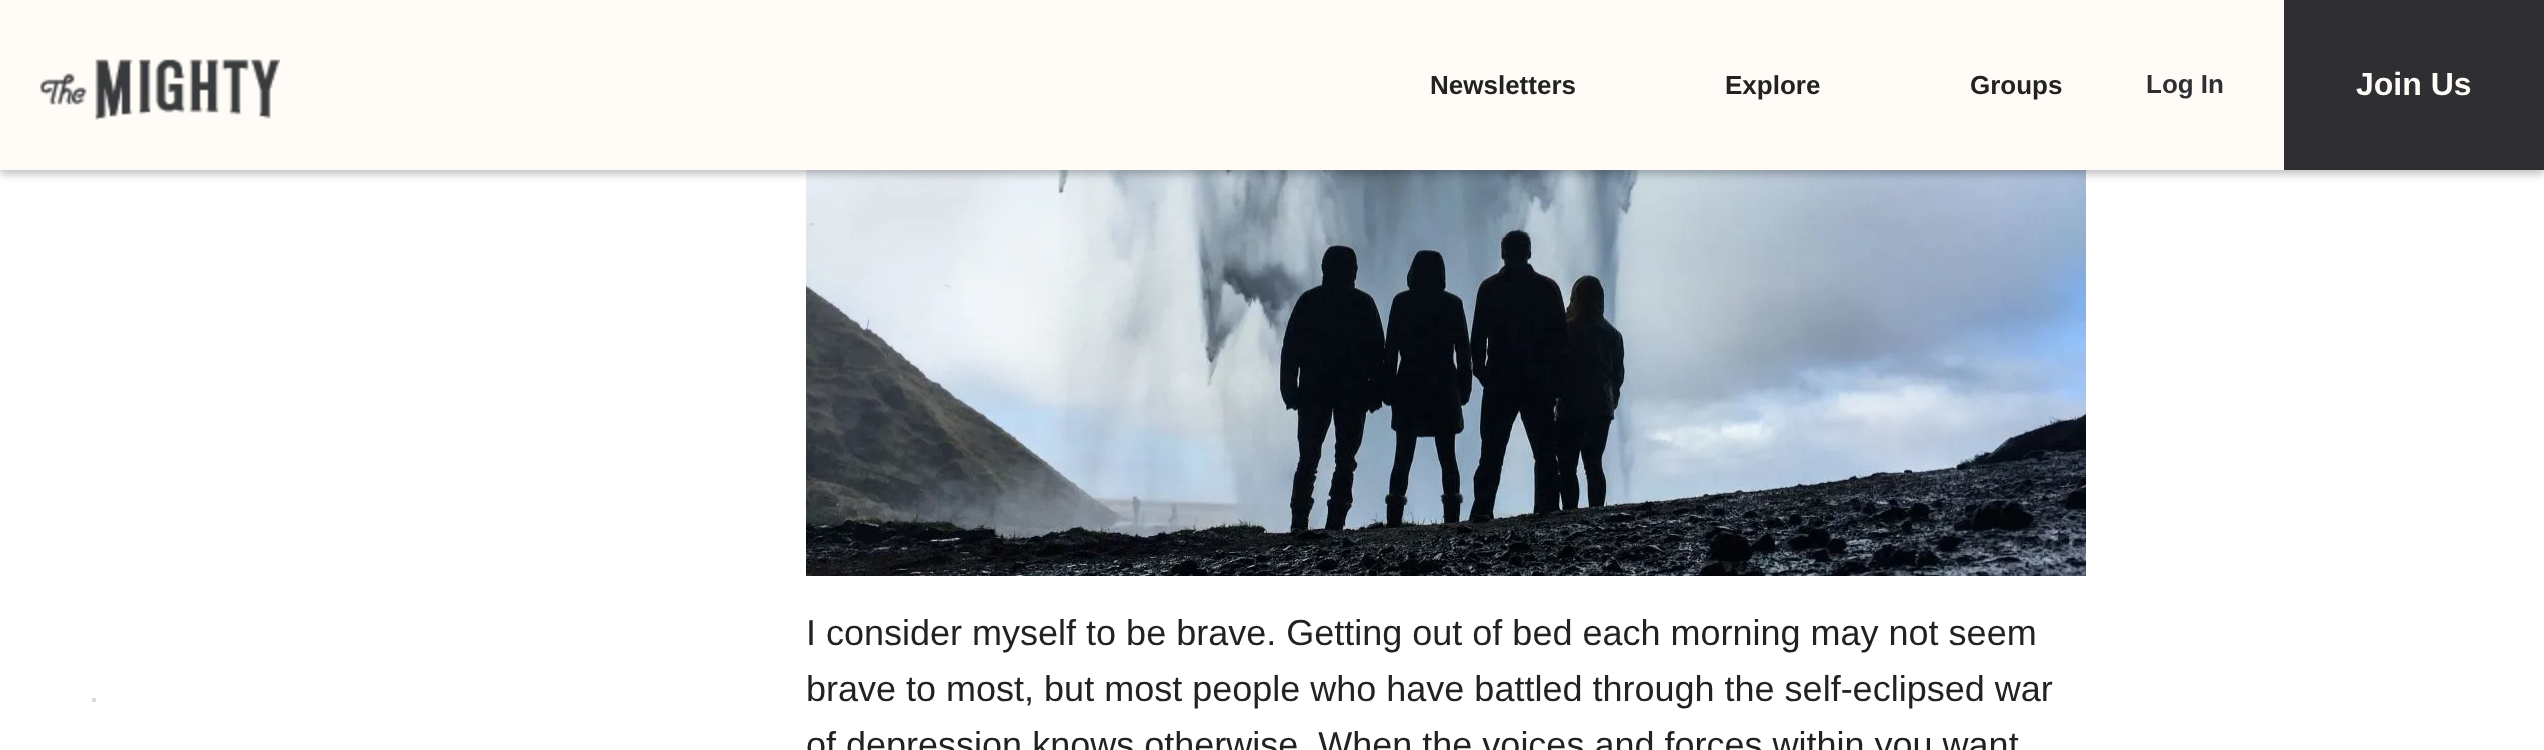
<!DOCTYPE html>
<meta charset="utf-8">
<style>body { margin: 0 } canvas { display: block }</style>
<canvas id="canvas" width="2544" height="750"></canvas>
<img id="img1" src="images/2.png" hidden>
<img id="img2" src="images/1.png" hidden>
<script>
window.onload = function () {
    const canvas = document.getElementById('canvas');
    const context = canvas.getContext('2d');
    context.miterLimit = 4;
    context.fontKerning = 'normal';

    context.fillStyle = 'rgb(255, 255, 255)';
    context.fillRect(0, 0, 2544, 750);
    context.drawImage(document.getElementById('img1'), 806, 170, 1280, 406);
    context.fillStyle = 'rgba(0, 0, 0, 0.25)';
    context.filter = 'blur(4px)';
    context.beginPath();
    context.rect(0, 4, 2544, 170);
    context.fill();
    context.filter = 'none';
    context.fillStyle = 'rgb(255, 252, 248)';
    context.fillRect(0, 0, 2284, 170);
    context.drawImage(document.getElementById('img2'), 40, 59, 240, 61);
    context.fillStyle = 'rgb(47, 47, 51)';
    context.fillRect(2284, 0, 260, 170);
    context.fillStyle = 'rgb(219, 219, 219)';
    context.fillRect(92, 698, 4, 4);
    context.font = 'bold 26px Liberation Sans';
    context.fillStyle = 'rgb(34, 34, 34)';
    context.fillText('Newsletters', 1430, 94);
    context.fillText('Explore', 1725, 94);
    context.fillText('Groups', 1970, 94);
    context.fillStyle = 'rgb(47, 47, 51)';
    context.fillText('Log In', 2146, 93);
    context.font = 'bold 32px Liberation Sans';
    context.fillStyle = 'rgb(255, 252, 248)';
    context.fillText('Join Us', 2356, 95);
    context.font = '36px Liberation Sans';
    context.fillStyle = 'rgb(34, 34, 34)';
    context.fillText('I consider myself to be brave. Getting out of bed each morning may not seem', 806, 645);
    context.fillText('brave to most, but most people who have battled through the self-eclipsed war', 806, 701);
    context.fillText('of depression knows otherwise. When the voices and forces within you want', 806, 757);
};
</script>
